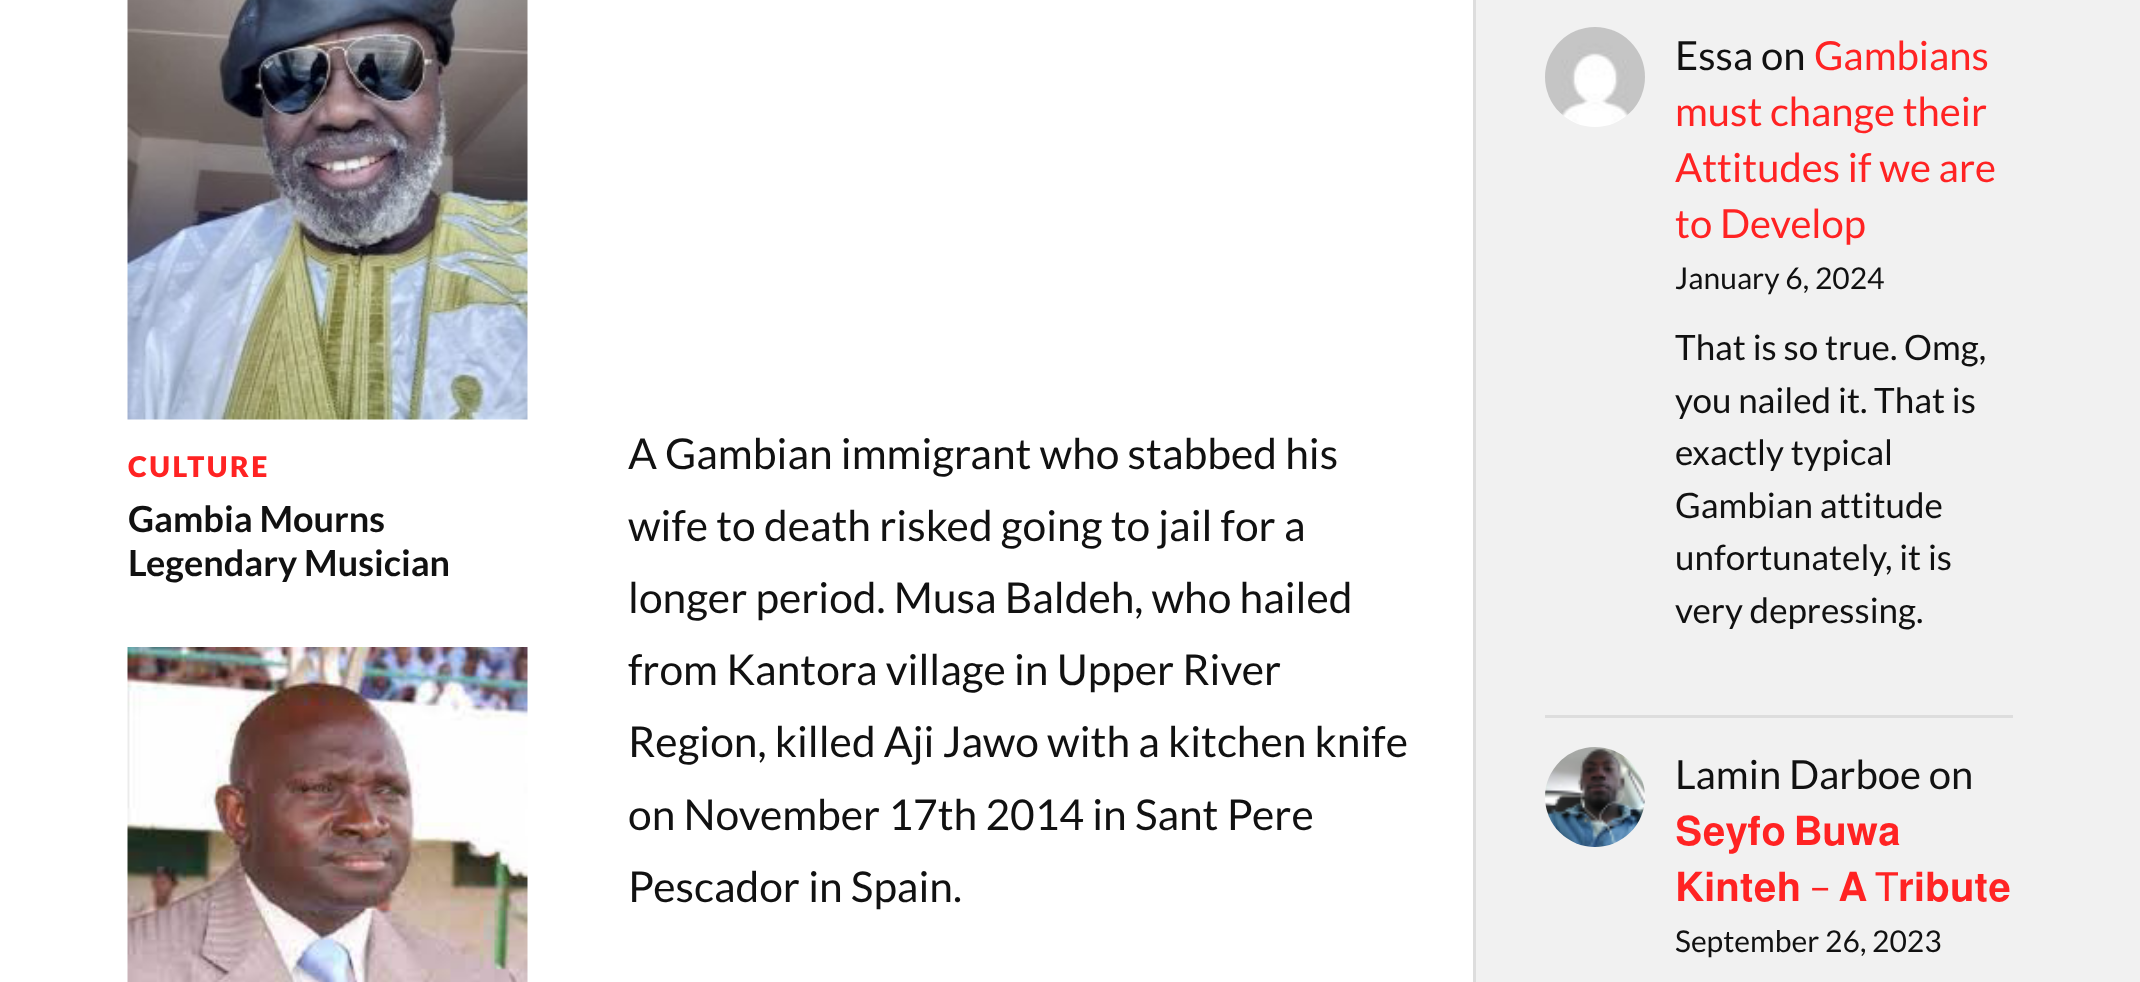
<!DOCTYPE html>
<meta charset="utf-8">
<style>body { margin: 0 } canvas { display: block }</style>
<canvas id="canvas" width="2140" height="982"></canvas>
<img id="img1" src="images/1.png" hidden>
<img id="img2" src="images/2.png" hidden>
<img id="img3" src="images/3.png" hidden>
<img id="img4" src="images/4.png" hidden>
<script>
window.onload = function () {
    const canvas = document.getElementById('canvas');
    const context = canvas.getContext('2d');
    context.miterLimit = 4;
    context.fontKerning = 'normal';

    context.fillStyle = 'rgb(241, 241, 241)';
    context.fillRect(0, 0, 2140, 982);
    context.fillStyle = 'rgb(255, 255, 255)';
    context.fillRect(0, 0, 1473, 982);
    context.drawImage(document.getElementById('img1'), 127, 0, 401, 420);
    context.drawImage(document.getElementById('img2'), 127, 647, 401, 335);
    context.fillStyle = 'rgb(221, 221, 221)';
    context.fillRect(1473, 0, 3, 982);
    context.fillRect(1545, 715, 468, 3);
    context.drawImage(document.getElementById('img3'), 1545, 27, 100, 100);
    context.drawImage(document.getElementById('img4'), 1545, 747, 100, 100);
    context.letterSpacing = '2.5px';
    context.font = '900 28.5px Lato';
    context.fillStyle = 'rgb(255, 35, 35)';
    context.fillText('CULTURE', 128, 477);
    context.letterSpacing = '0px';
    context.font = 'bold 36.1px Lato';
    context.fillStyle = 'rgb(17, 17, 17)';
    context.fillText('Gambia Mourns', 128, 532);
    context.fillText('Legendary Musician', 128, 576);
    context.font = '42.5px Lato';
    context.fillText('A Gambian immigrant who stabbed his', 628, 469);
    context.fillText('wife to death risked going to jail for a', 628, 541);
    context.fillText('longer period. Musa Baldeh, who hailed', 628, 613);
    context.fillText('from Kantora village in Upper River', 628, 685);
    context.fillText('Region, killed Aji Jawo with a kitchen knife', 628, 757);
    context.fillText('on November 17th 2014 in Sant Pere', 628, 830);
    context.fillText('Pescador in Spain.', 628, 902);
    context.font = '40px Lato';
    context.fillText('Essa on', 1675, 70);
    context.fillStyle = 'rgb(255, 35, 35)';
    context.fillText('Gambians', 1814, 70);
    context.fillText('must change their', 1675, 126);
    context.fillText('Attitudes if we are', 1675, 182);
    context.fillText('to Develop', 1675, 238);
    context.font = '30px Lato';
    context.fillStyle = 'rgb(17, 17, 17)';
    context.fillText('January 6, 2024', 1675, 289);
    context.font = '35px Lato';
    context.fillText('That is so true. Omg,', 1675, 360);
    context.fillText('you nailed it. That is', 1675, 413);
    context.fillText('exactly typical', 1675, 465);
    context.fillText('Gambian attitude', 1675, 518);
    context.fillText('unfortunately, it is', 1675, 570);
    context.fillText('very depressing.', 1675, 623);
    context.font = '40px Lato';
    context.fillText('Lamin Darboe on', 1675, 789);
    context.wordSpacing = '-2px';
    context.font = '40px FreeSans';
    context.fillStyle = 'rgb(255, 35, 35)';
    context.fillText('𝐒𝐞𝐲𝐟𝐨 𝐁𝐮𝐰𝐚', 1675, 845);
    context.wordSpacing = '0px';
    context.fillText('𝐊𝐢𝐧𝐭𝐞𝐡', 1675, 901);
    context.font = '40px Lato';
    context.fillText('–', 1809, 901);
    context.font = '40px FreeSans';
    context.fillText('𝐀', 1839, 901);
    context.font = '40px Lato';
    context.fillText('T', 1875, 901);
    context.font = '40px FreeSans';
    context.fillText('𝐫𝐢𝐛𝐮𝐭𝐞', 1898, 901);
    context.font = '30px Lato';
    context.fillStyle = 'rgb(17, 17, 17)';
    context.fillText('September 26, 2023', 1675, 952);
};
</script>
